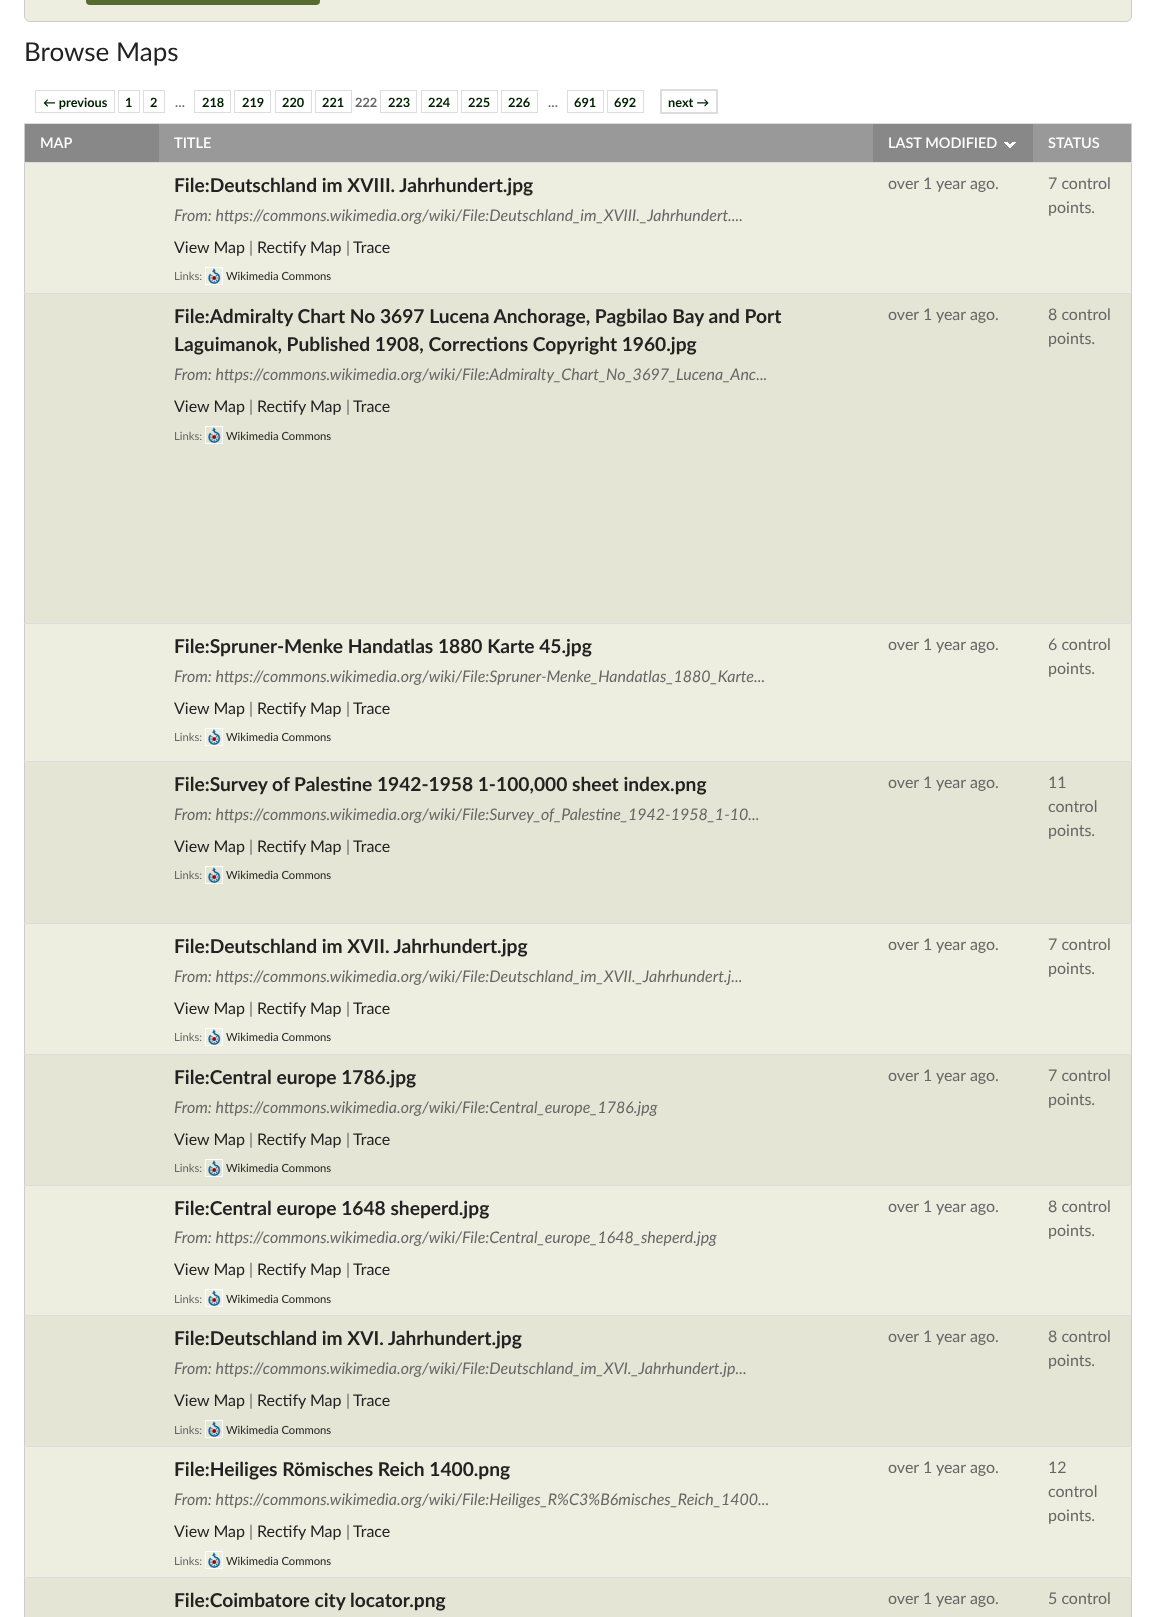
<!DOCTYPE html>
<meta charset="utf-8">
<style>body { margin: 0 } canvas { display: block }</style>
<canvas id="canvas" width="1156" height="1617"></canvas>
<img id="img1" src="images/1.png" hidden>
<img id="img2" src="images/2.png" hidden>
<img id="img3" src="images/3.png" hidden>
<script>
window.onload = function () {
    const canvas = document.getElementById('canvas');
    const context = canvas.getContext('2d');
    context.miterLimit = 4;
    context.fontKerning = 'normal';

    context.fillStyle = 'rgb(255, 255, 255)';
    context.fillRect(0, 0, 1156, 1617);
    context.fillStyle = 'rgb(238, 238, 224)';
    context.beginPath();
    context.roundRect(24.5, -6.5, 1107, 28, 5.5);
    context.fill();
    context.strokeStyle = 'rgb(204, 204, 204)';
    context.stroke();
    context.fillStyle = 'rgb(85, 107, 47)';
    context.beginPath();
    context.roundRect(86, -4, 234, 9, 4);
    context.fill();
    context.strokeStyle = 'rgb(221, 221, 221)';
    context.strokeRect(35.5, 90.5, 79, 22);
    context.strokeRect(118.5, 90.5, 21, 22);
    context.strokeRect(143.5, 90.5, 21, 22);
    context.strokeRect(194.5, 90.5, 36, 22);
    context.strokeRect(234.5, 90.5, 36, 22);
    context.strokeRect(275.5, 90.5, 36, 22);
    context.strokeRect(315.5, 90.5, 36, 22);
    context.strokeRect(380.5, 90.5, 36, 22);
    context.strokeRect(421.5, 90.5, 36, 22);
    context.strokeRect(461.5, 90.5, 36, 22);
    context.strokeRect(501.5, 90.5, 36, 22);
    context.strokeRect(567.5, 90.5, 36, 22);
    context.strokeRect(607.5, 90.5, 36, 22);
    context.lineWidth = 2;
    context.strokeRect(661, 90, 56, 23);
    context.fillStyle = 'rgb(204, 204, 204)';
    context.fillRect(1131, 123, 1, 1494);
    context.fillRect(24, 123, 1, 1494);
    context.fillStyle = 'rgb(136, 136, 136)';
    context.fillRect(25, 124, 134, 38);
    context.fillStyle = 'rgb(153, 153, 153)';
    context.fillRect(159, 124, 714, 38);
    context.fillStyle = 'rgb(136, 136, 136)';
    context.fillRect(873, 124, 160, 38);
    context.drawImage(document.getElementById('img1'), 1004, 142, 12, 6);
    context.fillStyle = 'rgb(153, 153, 153)';
    context.fillRect(1033, 124, 98, 38);
    context.fillStyle = 'rgb(221, 221, 221)';
    context.fillRect(24, 123, 1108, 1);
    context.fillStyle = 'rgb(238, 238, 224)';
    context.fillRect(25, 163, 1106, 130);
    context.strokeStyle = 'rgb(255, 255, 255)';
    context.lineWidth = 1;
    context.strokeRect(205.5, 267.5, 17, 17);
    context.drawImage(document.getElementById('img2'), 208, 268, 13, 16);
    context.fillStyle = 'rgb(221, 221, 221)';
    context.fillRect(24, 162, 1108, 1);
    context.fillStyle = 'rgb(229, 229, 213)';
    context.fillRect(25, 294, 1106, 329);
    context.strokeRect(205.5, 426.5, 17, 17);
    context.drawImage(document.getElementById('img3'), 208, 427, 13, 16);
    context.fillStyle = 'rgb(221, 221, 221)';
    context.fillRect(24, 293, 1108, 1);
    context.fillStyle = 'rgb(238, 238, 224)';
    context.fillRect(25, 624, 1106, 137);
    context.strokeRect(205.5, 728.5, 17, 17);
    context.drawImage(document.getElementById('img2'), 208, 729, 13, 16);
    context.fillStyle = 'rgb(221, 221, 221)';
    context.fillRect(24, 623, 1108, 1);
    context.fillStyle = 'rgb(229, 229, 213)';
    context.fillRect(25, 762, 1106, 161);
    context.strokeRect(205.5, 866.5, 17, 17);
    context.drawImage(document.getElementById('img3'), 208, 867, 13, 16);
    context.fillStyle = 'rgb(221, 221, 221)';
    context.fillRect(24, 761, 1108, 1);
    context.fillStyle = 'rgb(238, 238, 224)';
    context.fillRect(25, 924, 1106, 130);
    context.strokeRect(205.5, 1028.5, 17, 17);
    context.drawImage(document.getElementById('img2'), 208, 1029, 13, 16);
    context.fillStyle = 'rgb(221, 221, 221)';
    context.fillRect(24, 923, 1108, 1);
    context.fillStyle = 'rgb(229, 229, 213)';
    context.fillRect(25, 1055, 1106, 130);
    context.strokeRect(205.5, 1159.5, 17, 17);
    context.drawImage(document.getElementById('img3'), 208, 1160, 13, 16);
    context.fillStyle = 'rgb(221, 221, 221)';
    context.fillRect(24, 1054, 1108, 1);
    context.fillStyle = 'rgb(238, 238, 224)';
    context.fillRect(25, 1186, 1106, 129);
    context.strokeRect(205.5, 1289.5, 17, 17);
    context.drawImage(document.getElementById('img2'), 208, 1290, 13, 16);
    context.fillStyle = 'rgb(221, 221, 221)';
    context.fillRect(24, 1185, 1108, 1);
    context.fillStyle = 'rgb(229, 229, 213)';
    context.fillRect(25, 1316, 1106, 130);
    context.strokeRect(205.5, 1420.5, 17, 17);
    context.drawImage(document.getElementById('img3'), 208, 1421, 13, 16);
    context.fillStyle = 'rgb(221, 221, 221)';
    context.fillRect(24, 1315, 1108, 1);
    context.fillStyle = 'rgb(238, 238, 224)';
    context.fillRect(25, 1447, 1106, 130);
    context.strokeRect(205.5, 1551.5, 17, 17);
    context.drawImage(document.getElementById('img2'), 208, 1552, 13, 16);
    context.fillStyle = 'rgb(221, 221, 221)';
    context.fillRect(24, 1446, 1108, 1);
    context.fillStyle = 'rgb(229, 229, 213)';
    context.fillRect(25, 1578, 1106, 39);
    context.fillStyle = 'rgb(221, 221, 221)';
    context.fillRect(24, 1577, 1108, 1);
    context.font = '26px Lato';
    context.fillStyle = 'rgb(34, 34, 34)';
    context.fillText('Browse Maps', 24, 61);
    context.font = 'bold 12.75px Lato';
    context.fillStyle = 'rgb(0, 34, 0)';
    context.fillText('← previous', 43, 107);
    context.fillText('1', 125, 107);
    context.fillText('2', 150, 107);
    context.fillStyle = 'rgb(102, 102, 102)';
    context.fillText('…', 175, 107);
    context.fillStyle = 'rgb(0, 34, 0)';
    context.fillText('218', 202, 107);
    context.fillText('219', 242, 107);
    context.fillText('220', 282, 107);
    context.fillText('221', 322, 107);
    context.fillStyle = 'rgb(102, 102, 102)';
    context.fillText('222', 355, 107);
    context.fillStyle = 'rgb(0, 34, 0)';
    context.fillText('223', 388, 107);
    context.fillText('224', 428, 107);
    context.fillText('225', 468, 107);
    context.fillText('226', 508, 107);
    context.fillStyle = 'rgb(102, 102, 102)';
    context.fillText('…', 548, 107);
    context.fillStyle = 'rgb(0, 34, 0)';
    context.fillText('691', 574, 107);
    context.fillText('692', 614, 107);
    context.fillText('next →', 668, 107);
    context.font = '600 14.5px Lato';
    context.fillStyle = 'rgb(255, 255, 255)';
    context.fillText('MAP', 40, 148);
    context.fillText('TITLE', 174, 148);
    context.fillText('LAST MODIFIED', 888, 148);
    context.fillText('STATUS', 1048, 148);
    context.font = 'bold 19.2px Lato';
    context.fillStyle = 'rgb(34, 34, 34)';
    context.fillText('File:Deutschland im XVIII. Jahrhundert.jpg', 174, 192);
    context.font = 'italic 16px Lato';
    context.fillStyle = 'rgb(102, 102, 102)';
    context.fillText('From: https://commons.wikimedia.org/wiki/File:Deutschland_im_XVIII._Jahrhundert....', 174, 221);
    context.font = '16px Lato';
    context.fillStyle = 'rgb(34, 34, 34)';
    context.fillText('View Map', 174, 253);
    context.fillStyle = 'rgb(102, 102, 102)';
    context.fillText('|', 249, 253);
    context.fillStyle = 'rgb(34, 34, 34)';
    context.fillText('Rectify Map', 257, 253);
    context.fillStyle = 'rgb(102, 102, 102)';
    context.fillText('|', 346, 253);
    context.fillStyle = 'rgb(34, 34, 34)';
    context.fillText('Trace', 353, 253);
    context.font = '11.25px Lato';
    context.fillStyle = 'rgb(102, 102, 102)';
    context.fillText('Links:', 174, 280);
    context.fillStyle = 'rgb(34, 34, 34)';
    context.fillText('Wikimedia Commons', 226, 280);
    context.font = '16px Lato';
    context.fillStyle = 'rgb(102, 102, 102)';
    context.fillText('over 1 year ago.', 888, 189);
    context.fillText('7 control', 1048, 189);
    context.fillText('points.', 1048, 213);
    context.font = 'bold 19.2px Lato';
    context.fillStyle = 'rgb(34, 34, 34)';
    context.fillText('File:Admiralty Chart No 3697 Lucena Anchorage, Pagbilao Bay and Port', 174, 323);
    context.fillText('Laguimanok, Published 1908, Corrections Copyright 1960.jpg', 174, 351);
    context.font = 'italic 16px Lato';
    context.fillStyle = 'rgb(102, 102, 102)';
    context.fillText('From: https://commons.wikimedia.org/wiki/File:Admiralty_Chart_No_3697_Lucena_Anc...', 174, 380);
    context.font = '16px Lato';
    context.fillStyle = 'rgb(34, 34, 34)';
    context.fillText('View Map', 174, 412);
    context.fillStyle = 'rgb(102, 102, 102)';
    context.fillText('|', 249, 412);
    context.fillStyle = 'rgb(34, 34, 34)';
    context.fillText('Rectify Map', 257, 412);
    context.fillStyle = 'rgb(102, 102, 102)';
    context.fillText('|', 346, 412);
    context.fillStyle = 'rgb(34, 34, 34)';
    context.fillText('Trace', 353, 412);
    context.font = '11.25px Lato';
    context.fillStyle = 'rgb(102, 102, 102)';
    context.fillText('Links:', 174, 440);
    context.fillStyle = 'rgb(34, 34, 34)';
    context.fillText('Wikimedia Commons', 226, 440);
    context.font = '16px Lato';
    context.fillStyle = 'rgb(102, 102, 102)';
    context.fillText('over 1 year ago.', 888, 320);
    context.fillText('8 control', 1048, 320);
    context.fillText('points.', 1048, 344);
    context.font = 'bold 19.2px Lato';
    context.fillStyle = 'rgb(34, 34, 34)';
    context.fillText('File:Spruner-Menke Handatlas 1880 Karte 45.jpg', 174, 653);
    context.font = 'italic 16px Lato';
    context.fillStyle = 'rgb(102, 102, 102)';
    context.fillText('From: https://commons.wikimedia.org/wiki/File:Spruner-Menke_Handatlas_1880_Karte...', 174, 682);
    context.font = '16px Lato';
    context.fillStyle = 'rgb(34, 34, 34)';
    context.fillText('View Map', 174, 714);
    context.fillStyle = 'rgb(102, 102, 102)';
    context.fillText('|', 249, 714);
    context.fillStyle = 'rgb(34, 34, 34)';
    context.fillText('Rectify Map', 257, 714);
    context.fillStyle = 'rgb(102, 102, 102)';
    context.fillText('|', 346, 714);
    context.fillStyle = 'rgb(34, 34, 34)';
    context.fillText('Trace', 353, 714);
    context.font = '11.25px Lato';
    context.fillStyle = 'rgb(102, 102, 102)';
    context.fillText('Links:', 174, 741);
    context.fillStyle = 'rgb(34, 34, 34)';
    context.fillText('Wikimedia Commons', 226, 741);
    context.font = '16px Lato';
    context.fillStyle = 'rgb(102, 102, 102)';
    context.fillText('over 1 year ago.', 888, 650);
    context.fillText('6 control', 1048, 650);
    context.fillText('points.', 1048, 674);
    context.font = 'bold 19.2px Lato';
    context.fillStyle = 'rgb(34, 34, 34)';
    context.fillText('File:Survey of Palestine 1942-1958 1-100,000 sheet index.png', 174, 791);
    context.font = 'italic 16px Lato';
    context.fillStyle = 'rgb(102, 102, 102)';
    context.fillText('From: https://commons.wikimedia.org/wiki/File:Survey_of_Palestine_1942-1958_1-10...', 174, 820);
    context.font = '16px Lato';
    context.fillStyle = 'rgb(34, 34, 34)';
    context.fillText('View Map', 174, 852);
    context.fillStyle = 'rgb(102, 102, 102)';
    context.fillText('|', 249, 852);
    context.fillStyle = 'rgb(34, 34, 34)';
    context.fillText('Rectify Map', 257, 852);
    context.fillStyle = 'rgb(102, 102, 102)';
    context.fillText('|', 346, 852);
    context.fillStyle = 'rgb(34, 34, 34)';
    context.fillText('Trace', 353, 852);
    context.font = '11.25px Lato';
    context.fillStyle = 'rgb(102, 102, 102)';
    context.fillText('Links:', 174, 879);
    context.fillStyle = 'rgb(34, 34, 34)';
    context.fillText('Wikimedia Commons', 226, 879);
    context.font = '16px Lato';
    context.fillStyle = 'rgb(102, 102, 102)';
    context.fillText('over 1 year ago.', 888, 788);
    context.fillText('11', 1048, 788);
    context.fillText('control', 1048, 812);
    context.fillText('points.', 1048, 836);
    context.font = 'bold 19.2px Lato';
    context.fillStyle = 'rgb(34, 34, 34)';
    context.fillText('File:Deutschland im XVII. Jahrhundert.jpg', 174, 953);
    context.font = 'italic 16px Lato';
    context.fillStyle = 'rgb(102, 102, 102)';
    context.fillText('From: https://commons.wikimedia.org/wiki/File:Deutschland_im_XVII._Jahrhundert.j...', 174, 982);
    context.font = '16px Lato';
    context.fillStyle = 'rgb(34, 34, 34)';
    context.fillText('View Map', 174, 1014);
    context.fillStyle = 'rgb(102, 102, 102)';
    context.fillText('|', 249, 1014);
    context.fillStyle = 'rgb(34, 34, 34)';
    context.fillText('Rectify Map', 257, 1014);
    context.fillStyle = 'rgb(102, 102, 102)';
    context.fillText('|', 346, 1014);
    context.fillStyle = 'rgb(34, 34, 34)';
    context.fillText('Trace', 353, 1014);
    context.font = '11.25px Lato';
    context.fillStyle = 'rgb(102, 102, 102)';
    context.fillText('Links:', 174, 1041);
    context.fillStyle = 'rgb(34, 34, 34)';
    context.fillText('Wikimedia Commons', 226, 1041);
    context.font = '16px Lato';
    context.fillStyle = 'rgb(102, 102, 102)';
    context.fillText('over 1 year ago.', 888, 950);
    context.fillText('7 control', 1048, 950);
    context.fillText('points.', 1048, 974);
    context.font = 'bold 19.2px Lato';
    context.fillStyle = 'rgb(34, 34, 34)';
    context.fillText('File:Central europe 1786.jpg', 174, 1084);
    context.font = 'italic 16px Lato';
    context.fillStyle = 'rgb(102, 102, 102)';
    context.fillText('From: https://commons.wikimedia.org/wiki/File:Central_europe_1786.jpg', 174, 1113);
    context.font = '16px Lato';
    context.fillStyle = 'rgb(34, 34, 34)';
    context.fillText('View Map', 174, 1145);
    context.fillStyle = 'rgb(102, 102, 102)';
    context.fillText('|', 249, 1145);
    context.fillStyle = 'rgb(34, 34, 34)';
    context.fillText('Rectify Map', 257, 1145);
    context.fillStyle = 'rgb(102, 102, 102)';
    context.fillText('|', 346, 1145);
    context.fillStyle = 'rgb(34, 34, 34)';
    context.fillText('Trace', 353, 1145);
    context.font = '11.25px Lato';
    context.fillStyle = 'rgb(102, 102, 102)';
    context.fillText('Links:', 174, 1172);
    context.fillStyle = 'rgb(34, 34, 34)';
    context.fillText('Wikimedia Commons', 226, 1172);
    context.font = '16px Lato';
    context.fillStyle = 'rgb(102, 102, 102)';
    context.fillText('over 1 year ago.', 888, 1081);
    context.fillText('7 control', 1048, 1081);
    context.fillText('points.', 1048, 1105);
    context.font = 'bold 19.2px Lato';
    context.fillStyle = 'rgb(34, 34, 34)';
    context.fillText('File:Central europe 1648 sheperd.jpg', 174, 1215);
    context.font = 'italic 16px Lato';
    context.fillStyle = 'rgb(102, 102, 102)';
    context.fillText('From: https://commons.wikimedia.org/wiki/File:Central_europe_1648_sheperd.jpg', 174, 1243);
    context.font = '16px Lato';
    context.fillStyle = 'rgb(34, 34, 34)';
    context.fillText('View Map', 174, 1275);
    context.fillStyle = 'rgb(102, 102, 102)';
    context.fillText('|', 249, 1275);
    context.fillStyle = 'rgb(34, 34, 34)';
    context.fillText('Rectify Map', 257, 1275);
    context.fillStyle = 'rgb(102, 102, 102)';
    context.fillText('|', 346, 1275);
    context.fillStyle = 'rgb(34, 34, 34)';
    context.fillText('Trace', 353, 1275);
    context.font = '11.25px Lato';
    context.fillStyle = 'rgb(102, 102, 102)';
    context.fillText('Links:', 174, 1303);
    context.fillStyle = 'rgb(34, 34, 34)';
    context.fillText('Wikimedia Commons', 226, 1303);
    context.font = '16px Lato';
    context.fillStyle = 'rgb(102, 102, 102)';
    context.fillText('over 1 year ago.', 888, 1212);
    context.fillText('8 control', 1048, 1212);
    context.fillText('points.', 1048, 1236);
    context.font = 'bold 19.2px Lato';
    context.fillStyle = 'rgb(34, 34, 34)';
    context.fillText('File:Deutschland im XVI. Jahrhundert.jpg', 174, 1345);
    context.font = 'italic 16px Lato';
    context.fillStyle = 'rgb(102, 102, 102)';
    context.fillText('From: https://commons.wikimedia.org/wiki/File:Deutschland_im_XVI._Jahrhundert.jp...', 174, 1374);
    context.font = '16px Lato';
    context.fillStyle = 'rgb(34, 34, 34)';
    context.fillText('View Map', 174, 1406);
    context.fillStyle = 'rgb(102, 102, 102)';
    context.fillText('|', 249, 1406);
    context.fillStyle = 'rgb(34, 34, 34)';
    context.fillText('Rectify Map', 257, 1406);
    context.fillStyle = 'rgb(102, 102, 102)';
    context.fillText('|', 346, 1406);
    context.fillStyle = 'rgb(34, 34, 34)';
    context.fillText('Trace', 353, 1406);
    context.font = '11.25px Lato';
    context.fillStyle = 'rgb(102, 102, 102)';
    context.fillText('Links:', 174, 1434);
    context.fillStyle = 'rgb(34, 34, 34)';
    context.fillText('Wikimedia Commons', 226, 1434);
    context.font = '16px Lato';
    context.fillStyle = 'rgb(102, 102, 102)';
    context.fillText('over 1 year ago.', 888, 1342);
    context.fillText('8 control', 1048, 1342);
    context.fillText('points.', 1048, 1366);
    context.font = 'bold 19.2px Lato';
    context.fillStyle = 'rgb(34, 34, 34)';
    context.fillText('File:Heiliges Römisches Reich 1400.png', 174, 1476);
    context.font = 'italic 16px Lato';
    context.fillStyle = 'rgb(102, 102, 102)';
    context.fillText('From: https://commons.wikimedia.org/wiki/File:Heiliges_R%C3%B6misches_Reich_1400...', 174, 1505);
    context.font = '16px Lato';
    context.fillStyle = 'rgb(34, 34, 34)';
    context.fillText('View Map', 174, 1537);
    context.fillStyle = 'rgb(102, 102, 102)';
    context.fillText('|', 249, 1537);
    context.fillStyle = 'rgb(34, 34, 34)';
    context.fillText('Rectify Map', 257, 1537);
    context.fillStyle = 'rgb(102, 102, 102)';
    context.fillText('|', 346, 1537);
    context.fillStyle = 'rgb(34, 34, 34)';
    context.fillText('Trace', 353, 1537);
    context.font = '11.25px Lato';
    context.fillStyle = 'rgb(102, 102, 102)';
    context.fillText('Links:', 174, 1565);
    context.fillStyle = 'rgb(34, 34, 34)';
    context.fillText('Wikimedia Commons', 226, 1565);
    context.font = '16px Lato';
    context.fillStyle = 'rgb(102, 102, 102)';
    context.fillText('over 1 year ago.', 888, 1473);
    context.fillText('12', 1048, 1473);
    context.fillText('control', 1048, 1497);
    context.fillText('points.', 1048, 1521);
    context.font = 'bold 19.2px Lato';
    context.fillStyle = 'rgb(34, 34, 34)';
    context.fillText('File:Coimbatore city locator.png', 174, 1607);
    context.font = '16px Lato';
    context.fillStyle = 'rgb(102, 102, 102)';
    context.fillText('over 1 year ago.', 888, 1604);
    context.fillText('5 control', 1048, 1604);
};
</script>
